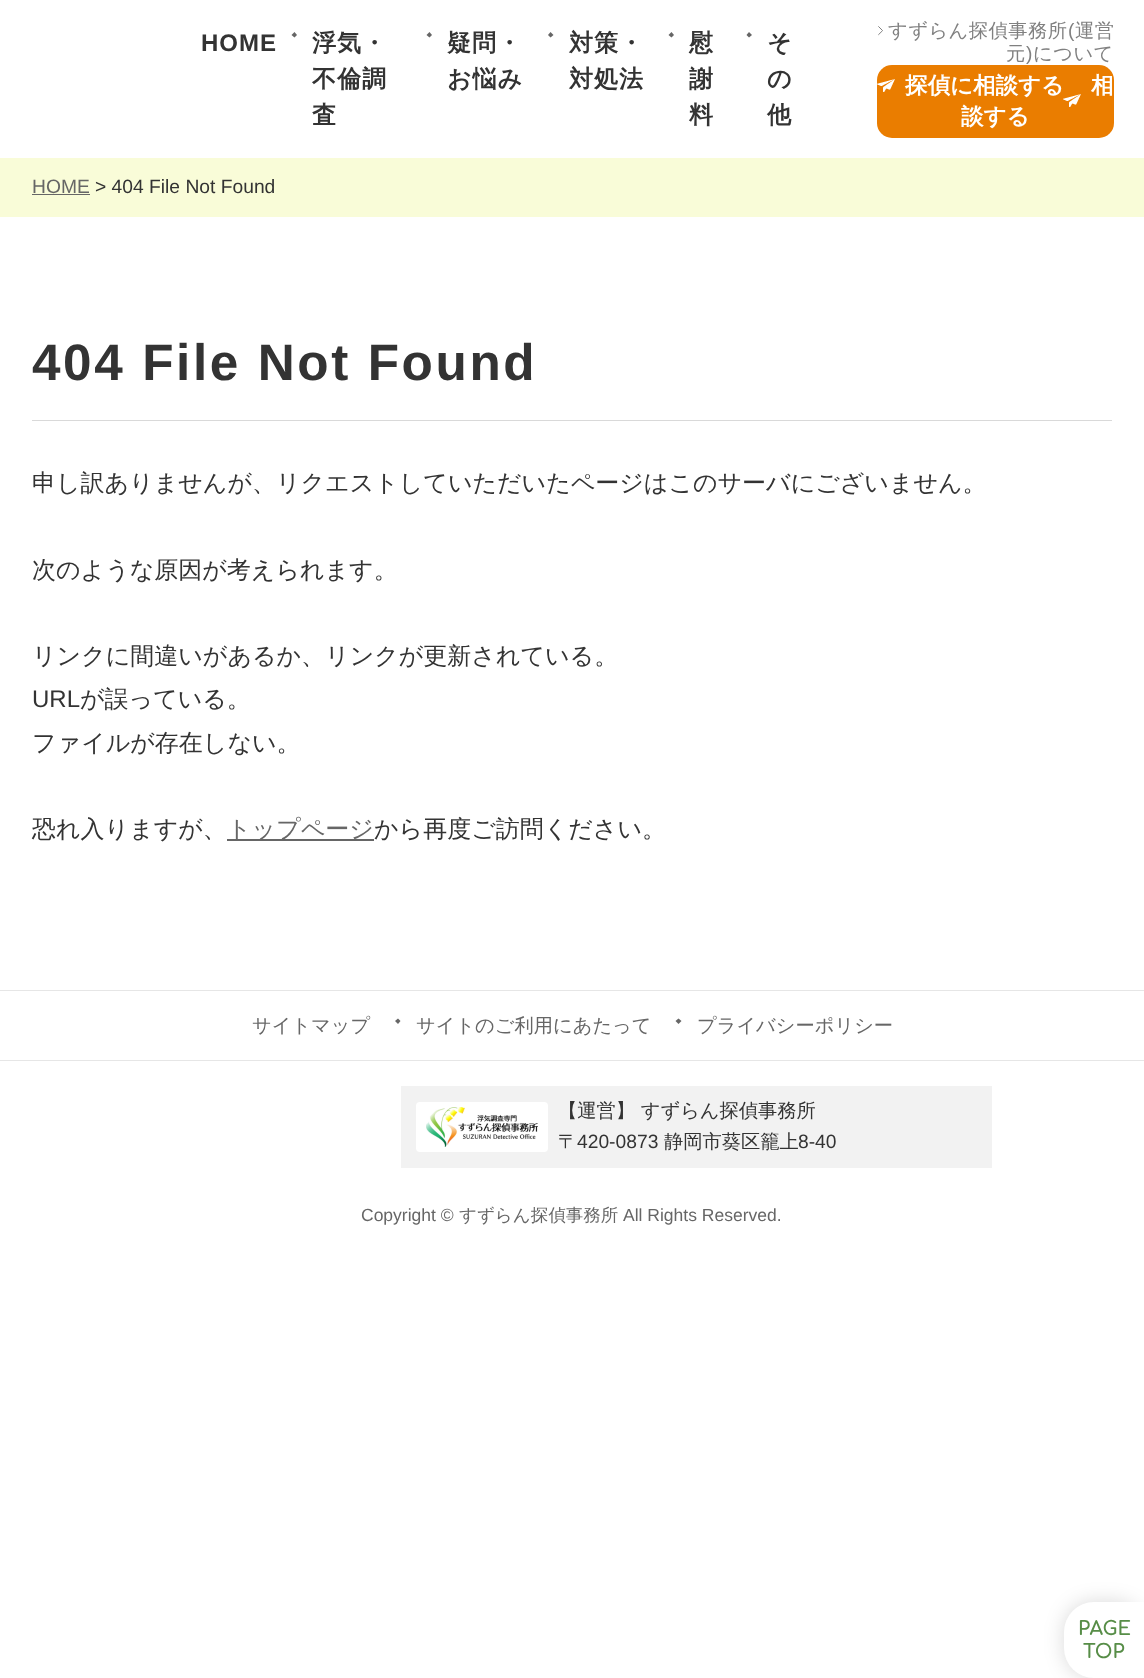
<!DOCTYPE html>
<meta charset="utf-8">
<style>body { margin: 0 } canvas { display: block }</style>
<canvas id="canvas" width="1144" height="1678"></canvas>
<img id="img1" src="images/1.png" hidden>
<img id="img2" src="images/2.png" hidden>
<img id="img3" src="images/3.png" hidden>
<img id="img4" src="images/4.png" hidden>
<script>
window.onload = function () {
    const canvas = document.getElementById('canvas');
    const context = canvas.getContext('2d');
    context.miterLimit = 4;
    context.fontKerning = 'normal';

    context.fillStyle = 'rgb(255, 255, 255)';
    context.fillRect(0, 0, 1144, 1678);
    context.fillStyle = 'rgb(102, 102, 102)';
    context.beginPath();
    context.moveTo(294.5, 32);
    context.lineTo(297, 35);
    context.lineTo(294.5, 37.5);
    context.lineTo(291.5, 35);
    context.closePath();
    context.fill();
    context.beginPath();
    context.moveTo(429.5, 32);
    context.lineTo(432, 35);
    context.lineTo(429.5, 37.5);
    context.lineTo(426.5, 35);
    context.closePath();
    context.fill();
    context.beginPath();
    context.moveTo(550.5, 32);
    context.lineTo(553.5, 35);
    context.lineTo(550.5, 37.5);
    context.lineTo(548, 35);
    context.closePath();
    context.fill();
    context.beginPath();
    context.moveTo(671.5, 32);
    context.lineTo(674, 35);
    context.lineTo(671.5, 37.5);
    context.lineTo(668.5, 35);
    context.closePath();
    context.fill();
    context.beginPath();
    context.moveTo(749, 32);
    context.lineTo(752, 35);
    context.lineTo(749, 37.5);
    context.lineTo(746.5, 35);
    context.closePath();
    context.fill();
    context.drawImage(document.getElementById('img1'), 878, 26, 5, 10);
    context.fillStyle = 'rgb(234, 125, 0)';
    context.beginPath();
    context.roundRect(877, 65, 237, 73, 15);
    context.fill();
    context.drawImage(document.getElementById('img2'), 877, 79, 18, 13);
    context.drawImage(document.getElementById('img3'), 1063, 94, 18, 13);
    context.fillStyle = 'rgb(249, 252, 216)';
    context.fillRect(0, 158, 1144, 59);
    context.fillStyle = 'rgb(102, 102, 102)';
    context.fillRect(32, 194, 58, 1);
    context.fillStyle = 'rgb(217, 217, 217)';
    context.fillRect(32, 420, 1080, 1);
    context.fillStyle = 'rgb(102, 102, 102)';
    context.fillRect(227, 839, 147, 2);
    context.fillStyle = 'rgb(230, 230, 230)';
    context.fillRect(0, 990, 1144, 1);
    context.fillRect(0, 1060, 1144, 1);
    context.fillStyle = 'rgb(102, 102, 102)';
    context.beginPath();
    context.moveTo(398, 1018.5);
    context.lineTo(400.5, 1021);
    context.lineTo(398, 1024);
    context.lineTo(395, 1021);
    context.closePath();
    context.fill();
    context.beginPath();
    context.moveTo(678.5, 1018.5);
    context.lineTo(681.5, 1021);
    context.lineTo(678.5, 1024);
    context.lineTo(675.5, 1021);
    context.closePath();
    context.fill();
    context.fillStyle = 'rgb(242, 242, 242)';
    context.fillRect(401, 1086, 591, 82);
    context.fillStyle = 'rgb(255, 255, 255)';
    context.beginPath();
    context.roundRect(416, 1102, 132, 50, 4);
    context.fill();
    context.drawImage(document.getElementById('img4'), 426, 1107, 112, 40);
    context.fillStyle = 'rgba(0, 0, 0, 0.15)';
    context.filter = 'blur(10px)';
    context.beginPath();
    context.roundRect(1064, 1602, 80, 76, 30);
    context.fill();
    context.filter = 'none';
    context.fillStyle = 'rgb(255, 255, 255)';
    context.beginPath();
    context.roundRect(1064, 1602, 80, 76, [30, 0, 0, 30]);
    context.fill();
    context.letterSpacing = '1px';
    context.font = 'bold 24px Liberation Sans';
    context.fillStyle = 'rgb(51, 51, 51)';
    context.fillText('HOME', 201, 51);
    context.font = 'bold 24px WenQuanYi Zen Hei';
    context.fillText('浮気・', 312, 51);
    context.fillText('不倫調', 312, 87);
    context.fillText('査', 312, 123);
    context.fillText('疑問・', 447, 51);
    context.fillText('お悩み', 447, 87);
    context.fillText('対策・', 569, 51);
    context.fillText('対処法', 569, 87);
    context.fillText('慰', 689, 51);
    context.fillText('謝', 689, 87);
    context.fillText('料', 689, 123);
    context.fillText('そ', 767, 51);
    context.fillText('の', 767, 87);
    context.fillText('他', 767, 123);
    context.letterSpacing = '0.5px';
    context.font = '500 19.25px WenQuanYi Zen Hei';
    context.fillStyle = 'rgb(128, 128, 128)';
    context.fillText('すずらん探偵事務所', 888, 37);
    context.font = '19.25px Liberation Sans';
    context.fillText('(', 1068, 37);
    context.font = '500 19.25px WenQuanYi Zen Hei';
    context.fillText('運営', 1075, 37);
    context.fillText('元', 1006, 60);
    context.font = '19.25px Liberation Sans';
    context.fillText(')', 1026, 60);
    context.font = '500 19.25px WenQuanYi Zen Hei';
    context.fillText('について', 1033, 60);
    context.letterSpacing = '0px';
    context.font = 'bold 22.5px WenQuanYi Zen Hei';
    context.fillStyle = 'rgb(255, 255, 255)';
    context.fillText('探偵に相談する', 905, 93);
    context.fillText('相', 1091, 93);
    context.fillText('談する', 961, 124);
    context.font = '19.25px Liberation Sans';
    context.fillStyle = 'rgb(102, 102, 102)';
    context.fillText('HOME', 32, 193);
    context.fillStyle = 'rgb(51, 51, 51)';
    context.fillText('> 404 File Not Found', 95, 193);
    context.letterSpacing = '2.6px';
    context.font = 'bold 51.25px Liberation Sans';
    context.fillText('404 File Not Found', 32, 380);
    context.letterSpacing = '0px';
    context.font = '500 24px WenQuanYi Zen Hei';
    context.fillText('申し訳ありませんが、リクエストしていただいたページはこのサーバにございません。', 32, 491);
    context.fillText('次のような原因が考えられます。', 32, 578);
    context.fillText('リンクに間違いがあるか、リンクが更新されている。', 32, 664);
    context.font = '24px Liberation Sans';
    context.fillText('URL', 32, 707);
    context.font = '500 24px WenQuanYi Zen Hei';
    context.fillText('が誤っている。', 80, 707);
    context.fillText('ファイルが存在しない。', 32, 751);
    context.fillText('恐れ入りますが、', 32, 837);
    context.fillStyle = 'rgb(102, 102, 102)';
    context.fillText('トップページ', 227, 837);
    context.fillStyle = 'rgb(51, 51, 51)';
    context.fillText('から再度ご訪問ください。', 374, 837);
    context.font = '500 19.25px WenQuanYi Zen Hei';
    context.fillStyle = 'rgb(102, 102, 102)';
    context.fillText('サイトマップ', 252, 1032);
    context.fillText('サイトのご利用にあたって', 416, 1032);
    context.fillText('プライバシーポリシー', 697, 1032);
    context.fillStyle = 'rgb(51, 51, 51)';
    context.fillText('【運営】 すずらん探偵事務所', 558, 1117);
    context.fillText('〒', 558, 1148);
    context.font = '19.25px Liberation Sans';
    context.fillText('420-0873', 577, 1148);
    context.font = '500 19.25px WenQuanYi Zen Hei';
    context.fillText('静岡市葵区籠上', 664, 1148);
    context.font = '19.25px Liberation Sans';
    context.fillText('8-40', 798, 1148);
    context.font = '17.5px Liberation Sans';
    context.fillStyle = 'rgb(102, 102, 102)';
    context.fillText('Copyright ©', 361, 1221);
    context.font = '500 17.5px WenQuanYi Zen Hei';
    context.fillText('すずらん探偵事務所', 459, 1221);
    context.font = '17.5px Liberation Sans';
    context.fillText('All Rights Reserved.', 623, 1221);
    context.font = 'bold 19.25px Comfortaa';
    context.fillStyle = 'rgb(87, 141, 71)';
    context.fillText('PAGE', 1078, 1635);
    context.fillText('TOP', 1083, 1658);
};
</script>
